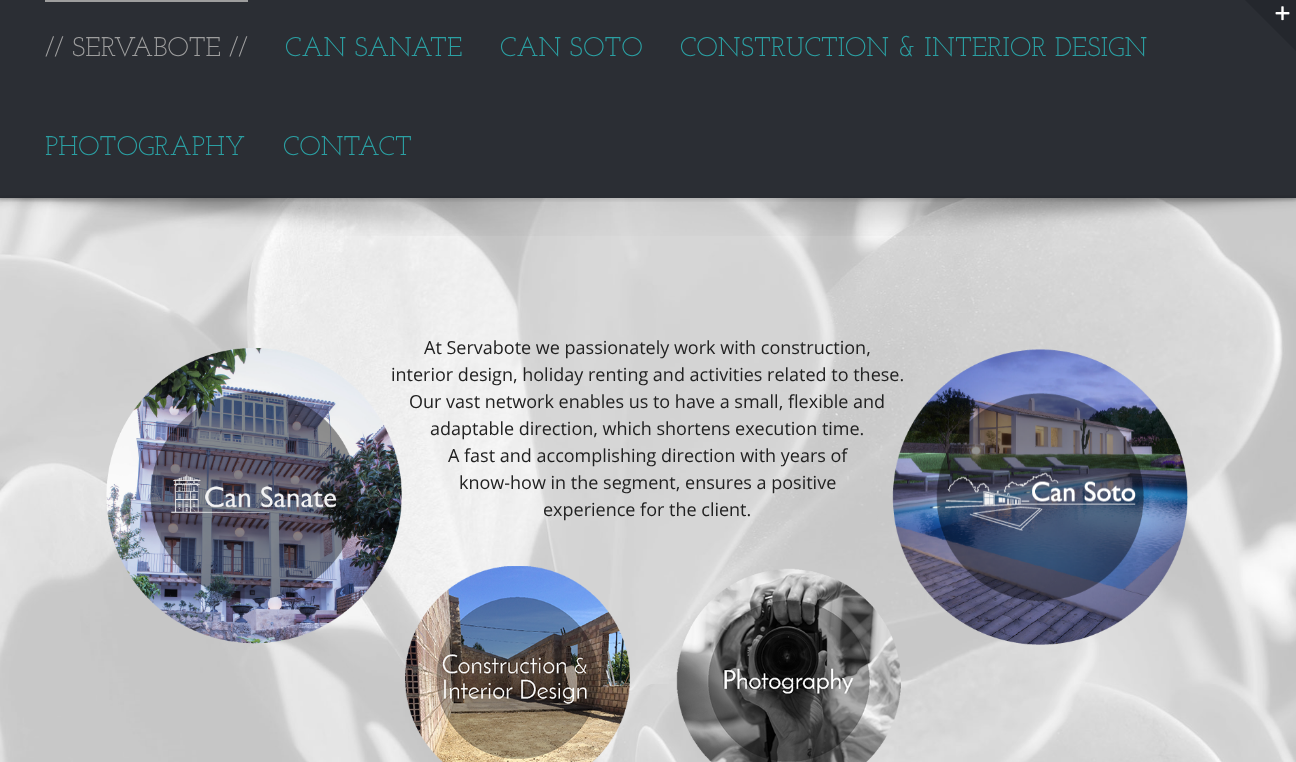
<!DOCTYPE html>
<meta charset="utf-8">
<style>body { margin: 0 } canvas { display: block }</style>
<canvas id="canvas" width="1296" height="762"></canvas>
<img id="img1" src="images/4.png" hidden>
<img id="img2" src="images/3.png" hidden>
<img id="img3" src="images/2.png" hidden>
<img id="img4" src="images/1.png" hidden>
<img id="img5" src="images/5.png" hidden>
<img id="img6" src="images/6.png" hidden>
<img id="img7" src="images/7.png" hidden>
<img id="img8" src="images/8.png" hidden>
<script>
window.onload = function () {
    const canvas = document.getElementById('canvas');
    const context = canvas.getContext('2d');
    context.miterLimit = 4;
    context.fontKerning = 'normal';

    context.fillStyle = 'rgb(255, 255, 255)';
    context.fillRect(0, 0, 1296, 762);
    context.fillStyle = 'rgb(224, 222, 222)';
    context.fillRect(0, 195, 1296, 2);
    context.drawImage(document.getElementById('img1'), 0, 197, 1296, 565);
    context.drawImage(document.getElementById('img2'), 0, 196, 1296, 566);
    context.drawImage(document.getElementById('img3'), 0, 195, 1296, 41);
    context.save();
    context.beginPath();
    context.rect(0, 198, 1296, 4);
    context.clip();
    context.fillStyle = 'rgba(0, 0, 0, 0.12)';
    context.filter = 'blur(2px)';
    context.beginPath();
    context.rect(0, 2, 1296, 198);
    context.fill();
    context.filter = 'none';
    context.restore();
    context.fillStyle = 'rgba(36, 39, 45, 0.97)';
    context.fillRect(0, 0, 1296, 198);
    context.fillStyle = 'rgb(36, 39, 45)';
    context.beginPath();
    context.moveTo(1242, -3);
    context.lineTo(1296, -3);
    context.lineTo(1296, 51);
    context.closePath();
    context.fill();
    context.drawImage(document.getElementById('img4'), 1275, 6, 15, 15);
    context.fillStyle = 'rgb(158, 158, 158)';
    context.fillRect(45, 0, 203, 2);
    context.drawImage(document.getElementById('img5'), 106, 348, 296, 296);
    context.drawImage(document.getElementById('img6'), 892, 349, 296, 296);
    context.drawImage(document.getElementById('img7'), 405, 566, 225, 196);
    context.drawImage(document.getElementById('img8'), 676, 568, 225, 194);
    context.font = '100 27px Josefin Slab';
    context.fillText('// SERVABOTE //', 45, 56);
    context.fillStyle = 'rgb(43, 160, 163)';
    context.fillText('CAN SANATE', 285, 56);
    context.fillText('CAN SOTO', 500, 56);
    context.fillText('CONSTRUCTION & INTERIOR DESIGN', 680, 56);
    context.fillText('PHOTOGRAPHY', 45, 155);
    context.fillText('CONTACT', 283, 155);
    context.font = '18px Open Sans';
    context.fillStyle = 'rgb(33, 33, 33)';
    context.fillText('At Servabote we passionately work with construction,', 424, 354);
    context.fillText('interior design, holiday renting and activities related to these.', 391, 381);
    context.fillText('Our vast network enables us to have a small, flexible and', 409, 408);
    context.fillText('adaptable direction, which shortens execution time.', 430, 435);
    context.fillText('A fast and accomplishing direction with years of', 448, 462);
    context.fillText('know-how in the segment, ensures a positive', 459, 489);
    context.fillText('experience for the client.', 543, 516);
};
</script>
